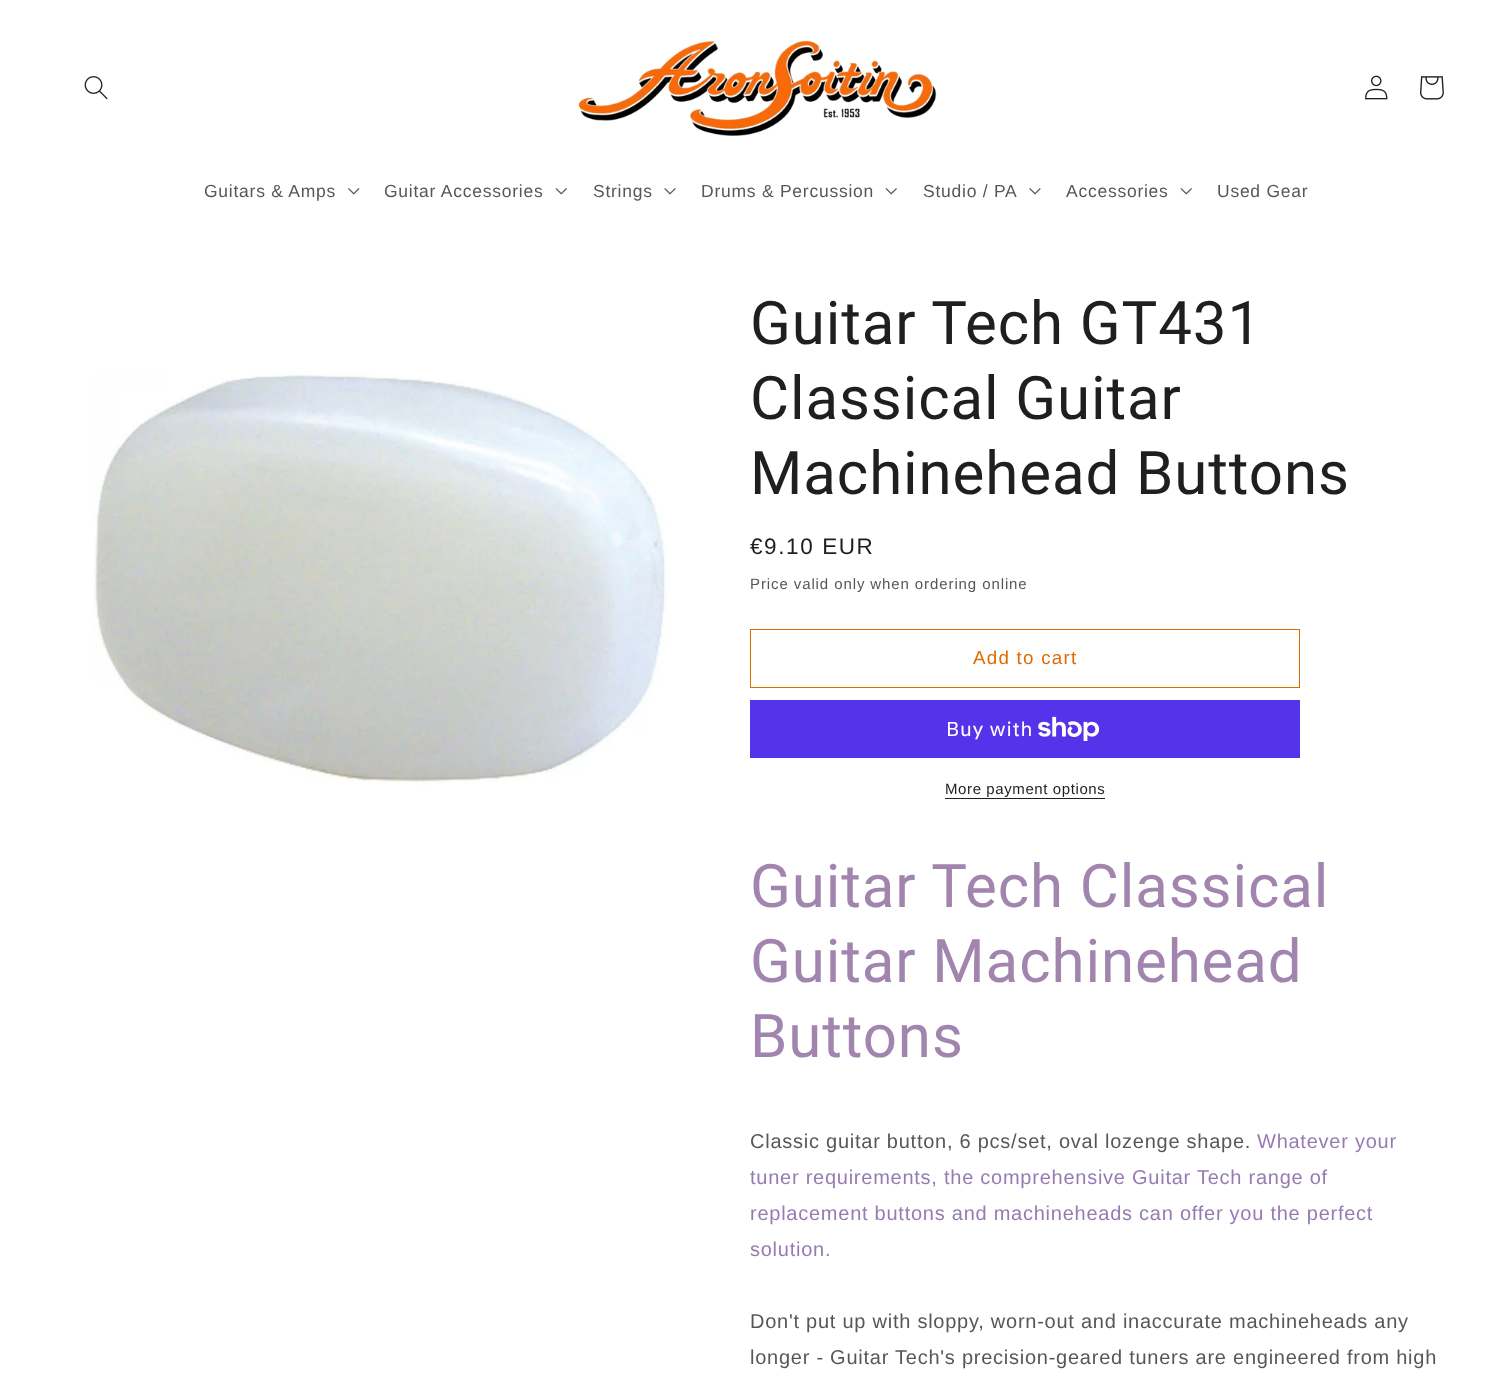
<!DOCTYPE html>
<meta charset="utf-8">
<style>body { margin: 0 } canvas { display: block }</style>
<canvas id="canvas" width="1512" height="1388"></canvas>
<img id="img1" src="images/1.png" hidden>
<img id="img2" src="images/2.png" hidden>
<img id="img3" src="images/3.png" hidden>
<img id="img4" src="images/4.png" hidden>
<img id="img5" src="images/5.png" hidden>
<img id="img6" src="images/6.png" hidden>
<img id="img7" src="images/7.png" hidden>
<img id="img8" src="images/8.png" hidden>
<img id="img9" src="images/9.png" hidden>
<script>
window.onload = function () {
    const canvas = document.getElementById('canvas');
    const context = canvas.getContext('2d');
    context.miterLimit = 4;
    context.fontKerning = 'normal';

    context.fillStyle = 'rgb(255, 255, 255)';
    context.fillRect(0, 0, 1512, 1388);
    context.drawImage(document.getElementById('img1'), 84, 76, 24, 24);
    context.drawImage(document.getElementById('img2'), 578, 40, 359, 96);
    context.drawImage(document.getElementById('img3'), 1365, 75, 23, 25);
    context.drawImage(document.getElementById('img4'), 1420, 76, 24, 24);
    context.drawImage(document.getElementById('img5'), 348, 188, 12, 7);
    context.drawImage(document.getElementById('img6'), 555, 188, 12, 7);
    context.drawImage(document.getElementById('img7'), 664, 188, 12, 7);
    context.drawImage(document.getElementById('img6'), 885, 188, 12, 7);
    context.drawImage(document.getElementById('img7'), 1029, 188, 12, 7);
    context.drawImage(document.getElementById('img6'), 1180, 188, 12, 7);
    context.drawImage(document.getElementById('img8'), 93, 373, 575, 412);
    context.strokeStyle = 'rgb(220, 108, 0)';
    context.strokeRect(750.5, 629.5, 549, 58);
    context.fillStyle = 'rgb(84, 51, 235)';
    context.fillRect(750, 700, 550, 58);
    context.drawImage(document.getElementById('img9'), 1038, 716, 62, 25);
    context.fillStyle = 'rgb(31, 31, 33)';
    context.fillRect(945, 798, 160, 1);
    context.letterSpacing = '0.75px';
    context.font = '17.5px Liberation Sans';
    context.fillStyle = 'rgb(87, 87, 89)';
    context.fillText('Guitars & Amps', 204, 197);
    context.fillText('Guitar Accessories', 384, 197);
    context.fillText('Strings', 593, 197);
    context.fillText('Drums & Percussion', 701, 197);
    context.fillText('Studio / PA', 923, 197);
    context.fillText('Accessories', 1066, 197);
    context.fillText('Used Gear', 1217, 197);
    context.letterSpacing = '0.9px';
    context.font = '60px Roboto';
    context.fillStyle = 'rgb(31, 31, 33)';
    context.fillText('Guitar Tech GT431', 750, 344);
    context.fillText('Classical Guitar', 750, 419);
    context.fillText('Machinehead Buttons', 750, 494);
    context.letterSpacing = '1.6px';
    context.font = '22.5px Liberation Sans';
    context.fillText('€9.10 EUR', 750, 554);
    context.letterSpacing = '0.9px';
    context.font = '15px Liberation Sans';
    context.fillStyle = 'rgb(87, 87, 89)';
    context.fillText('Price valid only when ordering online', 750, 589);
    context.letterSpacing = '1.25px';
    context.font = '18.75px Liberation Sans';
    context.fillStyle = 'rgb(220, 108, 0)';
    context.fillText('Add to cart', 973, 664);
    context.letterSpacing = '0.75px';
    context.font = '20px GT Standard';
    context.fillStyle = 'rgb(255, 255, 255)';
    context.fillText('Buy with', 946, 736);
    context.letterSpacing = '0.6px';
    context.font = '15px Liberation Sans';
    context.fillStyle = 'rgb(31, 31, 33)';
    context.fillText('More payment options', 945, 794);
    context.letterSpacing = '0.9px';
    context.font = '60px Roboto';
    context.fillStyle = 'rgb(161, 133, 175)';
    context.fillText('Guitar Tech Classical', 750, 907);
    context.fillText('Guitar Machinehead', 750, 982);
    context.fillText('Buttons', 750, 1057);
    context.letterSpacing = '0.75px';
    context.font = '20px Liberation Sans';
    context.fillStyle = 'rgb(87, 87, 89)';
    context.fillText('Classic guitar button, 6 pcs/set, oval lozenge shape.', 750, 1148);
    context.fillStyle = 'rgb(150, 123, 179)';
    context.fillText('Whatever your', 1257, 1148);
    context.fillText('tuner requirements, the comprehensive Guitar Tech range of', 750, 1184);
    context.fillText('replacement buttons and machineheads can offer you the perfect', 750, 1220);
    context.fillText('solution.', 750, 1256);
    context.fillStyle = 'rgb(87, 87, 89)';
    context.fillText('Don\'t put up with sloppy, worn-out and inaccurate machineheads any', 750, 1328);
    context.fillText('longer - Guitar Tech\'s precision-geared tuners are engineered from high', 750, 1364);
};
</script>
